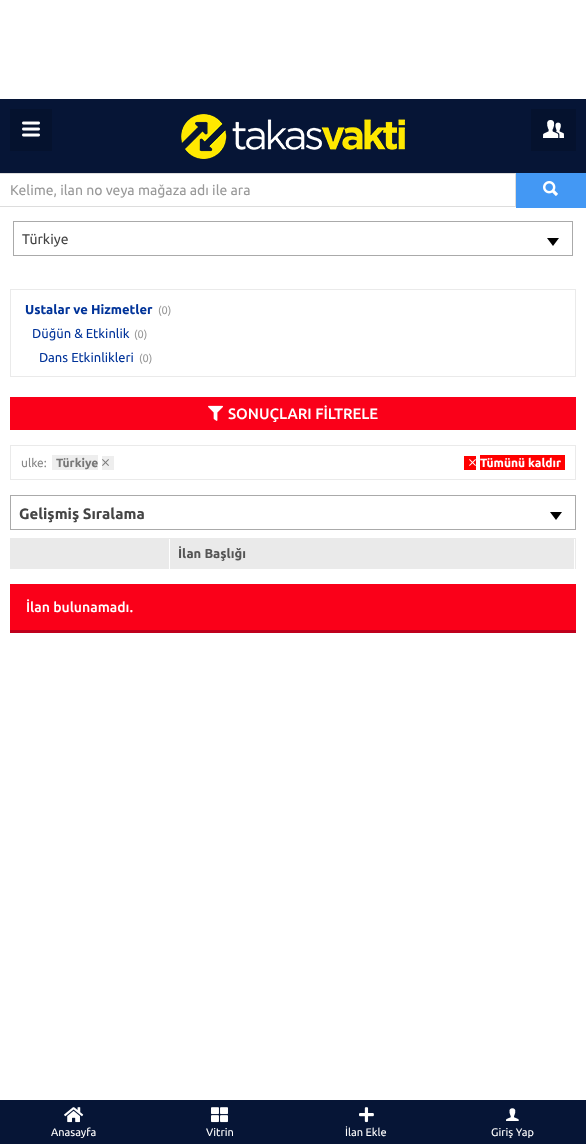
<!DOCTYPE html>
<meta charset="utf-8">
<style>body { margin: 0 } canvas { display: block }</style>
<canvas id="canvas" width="586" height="1144"></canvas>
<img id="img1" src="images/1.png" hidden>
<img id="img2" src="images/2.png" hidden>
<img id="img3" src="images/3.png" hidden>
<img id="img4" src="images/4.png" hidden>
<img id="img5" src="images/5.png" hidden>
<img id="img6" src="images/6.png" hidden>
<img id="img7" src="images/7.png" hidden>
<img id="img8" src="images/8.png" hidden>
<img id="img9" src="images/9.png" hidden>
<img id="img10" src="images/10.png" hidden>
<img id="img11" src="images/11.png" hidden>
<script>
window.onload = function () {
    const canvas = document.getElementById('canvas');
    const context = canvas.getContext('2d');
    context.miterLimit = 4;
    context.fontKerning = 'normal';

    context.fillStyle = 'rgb(255, 255, 255)';
    context.fillRect(0, 0, 586, 1144);
    context.fillStyle = 'rgb(6, 21, 54)';
    context.fillRect(0, 99, 586, 74);
    context.fillStyle = 'rgb(5, 18, 46)';
    context.fillRect(10, 109, 42, 42);
    context.drawImage(document.getElementById('img1'), 22, 121, 18, 16);
    context.drawImage(document.getElementById('img2'), 181, 114, 224, 45);
    context.fillRect(531, 109, 45, 42);
    context.drawImage(document.getElementById('img3'), 543, 120, 21, 18);
    context.fillStyle = 'rgb(221, 221, 221)';
    context.fillRect(0, 173, 516, 1);
    context.fillRect(515, 173, 1, 34);
    context.fillRect(0, 206, 516, 1);
    context.fillStyle = 'rgb(67, 152, 244)';
    context.fillRect(516, 173, 70, 35);
    context.drawImage(document.getElementById('img4'), 543, 181, 15, 15);
    context.strokeStyle = 'rgb(170, 170, 170)';
    context.strokeRect(13.5, 221.5, 559, 34);
    context.fillStyle = 'rgb(0, 0, 0)';
    context.beginPath();
    context.moveTo(547, 238);
    context.lineTo(559, 238);
    context.lineTo(553, 246);
    context.closePath();
    context.fill();
    context.strokeStyle = 'rgb(234, 234, 234)';
    context.strokeRect(10.5, 289.5, 565, 87);
    context.fillStyle = 'rgb(250, 0, 25)';
    context.fillRect(10, 397, 566, 33);
    context.drawImage(document.getElementById('img5'), 208, 405, 15, 16);
    context.strokeRect(10.5, 445.5, 565, 34);
    context.fillStyle = 'rgb(238, 238, 238)';
    context.fillRect(52, 455, 46, 15);
    context.fillRect(102, 456, 12, 14);
    context.drawImage(document.getElementById('img6'), 102, 459, 7, 7);
    context.fillStyle = 'rgb(255, 0, 0)';
    context.fillRect(464, 456, 12, 14);
    context.fillRect(480, 455, 85, 15);
    context.drawImage(document.getElementById('img7'), 469, 459, 7, 7);
    context.strokeStyle = 'rgb(170, 170, 170)';
    context.strokeRect(10.5, 495.5, 565, 34);
    context.fillStyle = 'rgb(0, 0, 0)';
    context.beginPath();
    context.moveTo(550, 512);
    context.lineTo(562, 512);
    context.lineTo(556, 520);
    context.closePath();
    context.fill();
    context.strokeStyle = 'rgb(234, 234, 234)';
    context.strokeRect(10.5, 538.5, 565, 30);
    context.fillStyle = 'rgb(234, 234, 234)';
    context.fillRect(11, 539, 563, 29);
    context.fillStyle = 'rgb(255, 255, 255)';
    context.fillRect(169, 539, 1, 30);
    context.fillRect(574, 568, 1, 1);
    context.fillStyle = 'rgb(250, 0, 25)';
    context.fillRect(10, 584, 566, 46);
    context.fillStyle = 'rgb(191, 0, 29)';
    context.fillRect(10, 630, 566, 3);
    context.fillStyle = 'rgb(6, 21, 54)';
    context.fillRect(0, 1100, 586, 44);
    context.drawImage(document.getElementById('img8'), 64, 1107, 20, 16);
    context.drawImage(document.getElementById('img9'), 211, 1107, 17, 16);
    context.drawImage(document.getElementById('img10'), 359, 1107, 15, 16);
    context.drawImage(document.getElementById('img11'), 506, 1108, 13, 13);
    context.font = '14px Ubuntu';
    context.fillStyle = 'rgb(153, 153, 153)';
    context.fillText('Kelime, ilan no veya mağaza adı ile ara', 10, 195);
    context.fillStyle = 'rgb(68, 68, 68)';
    context.fillText('Türkiye', 22, 244);
    context.font = 'bold 13px Ubuntu';
    context.fillStyle = 'rgb(0, 51, 153)';
    context.fillText('Ustalar ve Hizmetler', 25, 314);
    context.font = '11px Ubuntu';
    context.fillStyle = 'rgb(153, 153, 153)';
    context.fillText('(0)', 158, 314);
    context.font = '13px Ubuntu';
    context.fillStyle = 'rgb(0, 51, 153)';
    context.fillText('Düğün & Etkinlik', 32, 338);
    context.font = '11px Ubuntu';
    context.fillStyle = 'rgb(153, 153, 153)';
    context.fillText('(0)', 134, 338);
    context.font = '13px Ubuntu';
    context.fillStyle = 'rgb(0, 51, 153)';
    context.fillText('Dans Etkinlikleri', 39, 362);
    context.font = '11px Ubuntu';
    context.fillStyle = 'rgb(153, 153, 153)';
    context.fillText('(0)', 139, 362);
    context.font = '500 15px Ubuntu';
    context.fillStyle = 'rgb(255, 255, 255)';
    context.fillText('SONUÇLARI FİLTRELE', 228, 419);
    context.font = '12px Ubuntu';
    context.fillStyle = 'rgb(136, 136, 136)';
    context.fillText('ulke:', 21, 467);
    context.font = 'bold 12px Ubuntu';
    context.fillStyle = 'rgb(119, 119, 119)';
    context.fillText('Türkiye', 56, 467);
    context.fillStyle = 'rgb(255, 255, 255)';
    context.fillText('Tümünü kaldır', 480, 467);
    context.font = 'bold 15px Ubuntu';
    context.fillStyle = 'rgb(68, 68, 68)';
    context.fillText('Gelişmiş Sıralama', 19, 519);
    context.font = 'bold 13px Ubuntu';
    context.fillStyle = 'rgb(85, 85, 85)';
    context.fillText('İlan Başlığı', 178, 558);
    context.font = '500 14px Ubuntu';
    context.fillStyle = 'rgb(255, 255, 255)';
    context.fillText('İlan bulunamadı.', 26, 612);
    context.font = '11px Ubuntu';
    context.fillText('Anasayfa', 51, 1136);
    context.fillText('Vitrin', 206, 1136);
    context.fillText('İlan Ekle', 345, 1136);
    context.fillText('Giriş Yap', 491, 1136);
};
</script>
